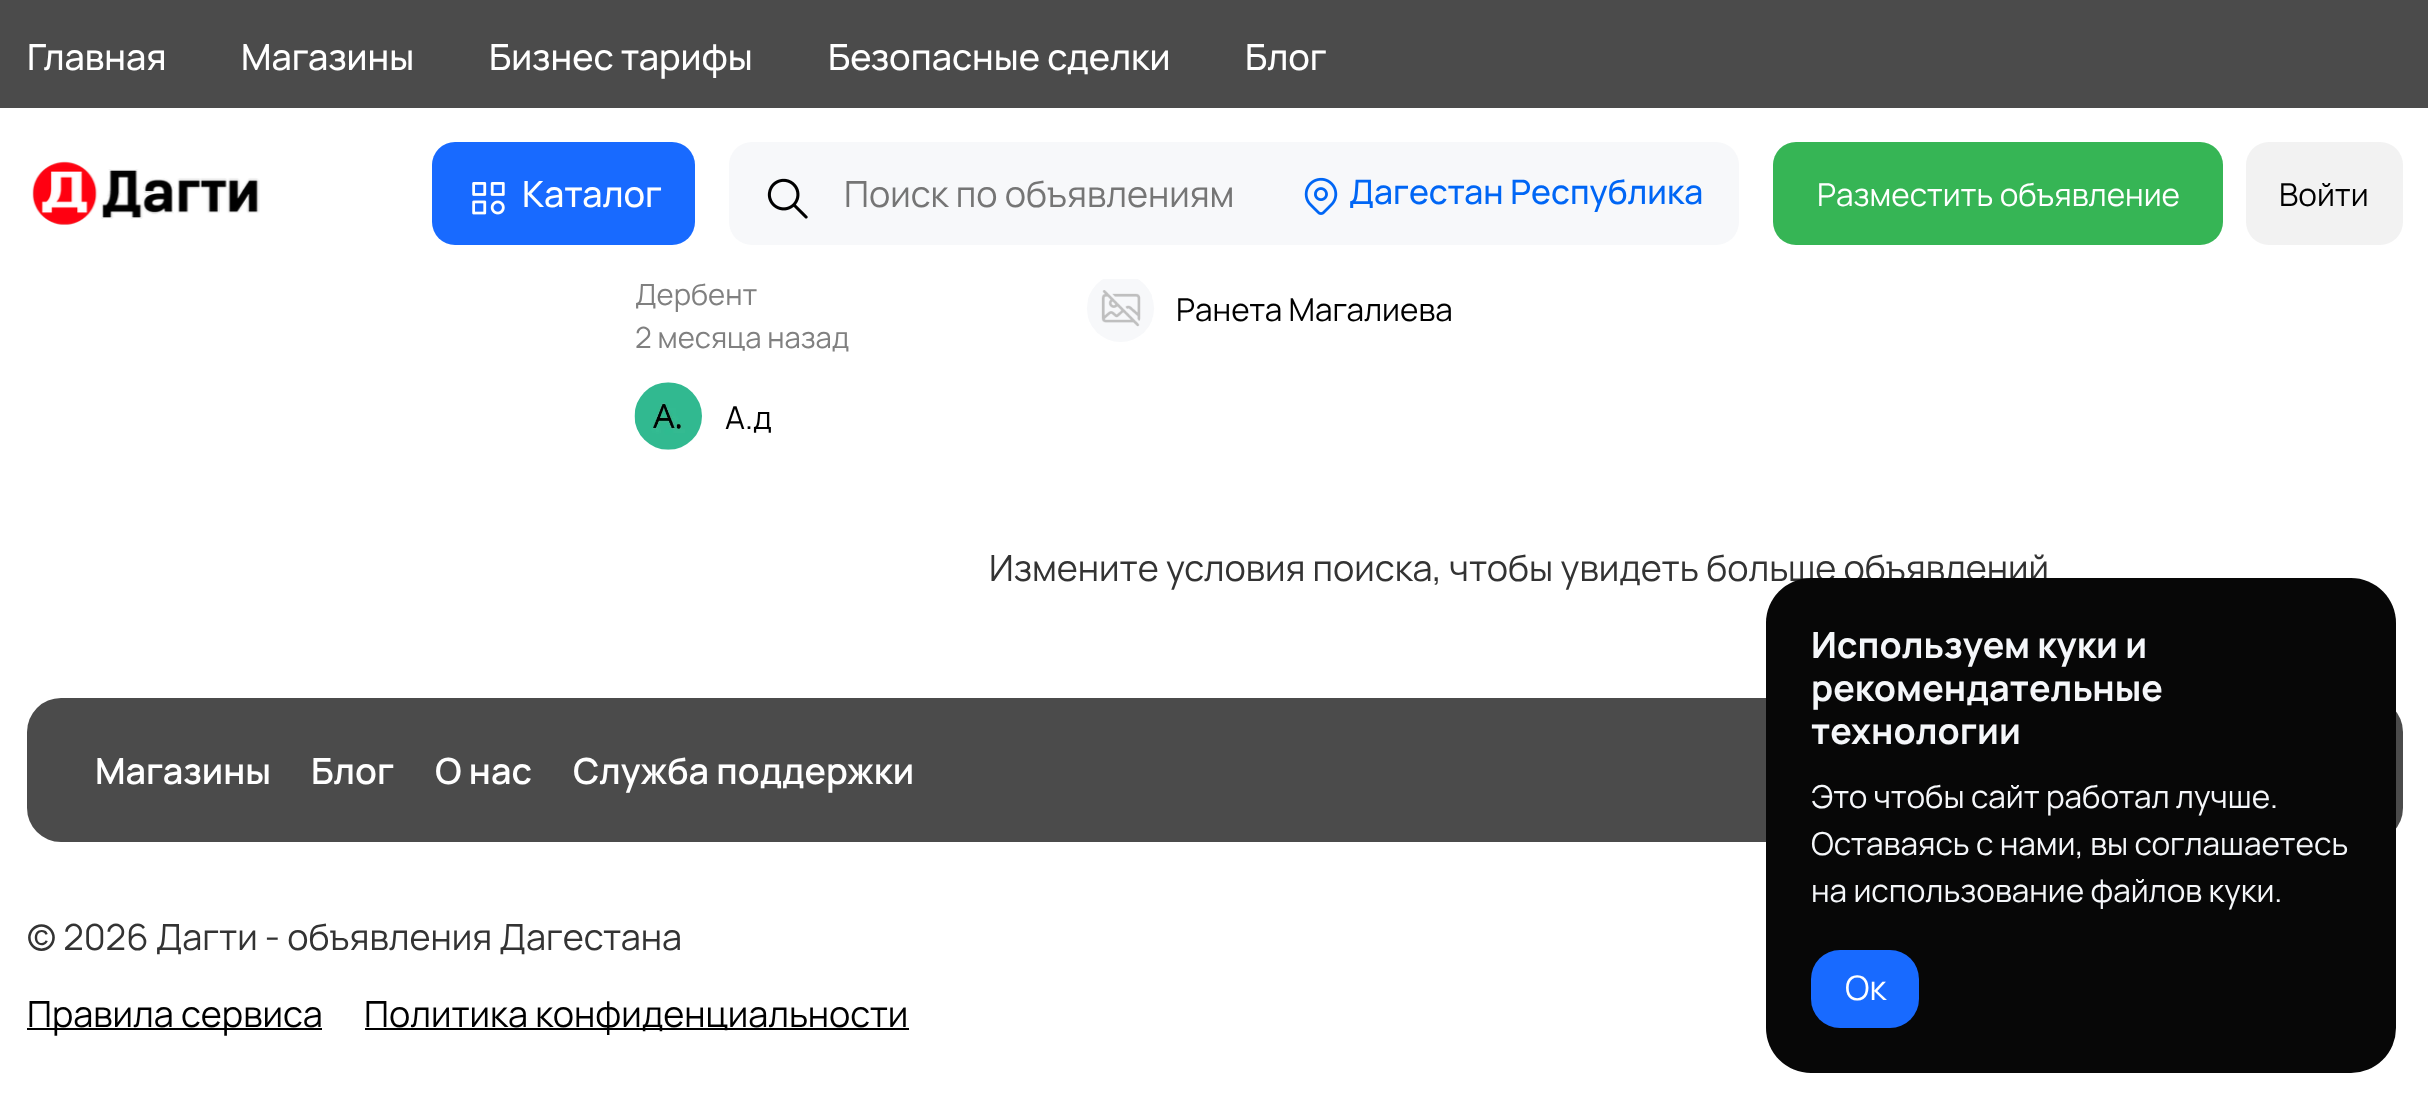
<!DOCTYPE html>
<meta charset="utf-8">
<style>body { margin: 0 } canvas { display: block }</style>
<canvas id="canvas" width="2428" height="1107"></canvas>
<img id="img1" src="images/1.png" hidden>
<img id="img2" src="images/2.png" hidden>
<img id="img3" src="images/3.png" hidden>
<img id="img4" src="images/4.png" hidden>
<img id="img5" src="images/5.png" hidden>
<img id="img6" src="images/6.png" hidden>
<script>
window.onload = function () {
    const canvas = document.getElementById('canvas');
    const context = canvas.getContext('2d');
    context.miterLimit = 4;
    context.fontKerning = 'normal';

    context.fillStyle = 'rgb(255, 255, 255)';
    context.fillRect(0, 0, 2428, 1107);
    context.fillStyle = 'rgb(247, 248, 250)';
    context.beginPath();
    context.arc(1120.5, 308.5, 33.5, 0, 2 * Math.PI);
    context.fill();
    context.fillStyle = 'rgb(255, 255, 255)';
    context.fillRect(1105, 275, 31, 4);
    context.fillStyle = 'rgb(75, 75, 75)';
    context.fillRect(0, 0, 2428, 108);
    context.drawImage(document.getElementById('img1'), 32, 161, 228, 64);
    context.fillStyle = 'rgb(24, 106, 255)';
    context.beginPath();
    context.roundRect(432, 142, 263, 103, 23);
    context.fill();
    context.drawImage(document.getElementById('img2'), 472, 182, 33, 33);
    context.fillStyle = 'rgb(247, 248, 250)';
    context.beginPath();
    context.roundRect(729, 142, 1010, 103, 23);
    context.fill();
    context.drawImage(document.getElementById('img3'), 767, 178, 41, 41);
    context.drawImage(document.getElementById('img4'), 1304, 177, 34, 38);
    context.fillStyle = 'rgb(54, 181, 85)';
    context.beginPath();
    context.roundRect(1773, 142, 450, 103, 23);
    context.fill();
    context.fillStyle = 'rgb(242, 242, 242)';
    context.beginPath();
    context.roundRect(2246, 142, 157, 103, 23);
    context.fill();
    context.fillStyle = 'rgb(247, 248, 250)';
    context.beginPath();
    context.arc(668.5, 416.5, 33.5, 0, 2 * Math.PI);
    context.fill();
    context.drawImage(document.getElementById('img5'), 634, 382, 68, 68);
    context.drawImage(document.getElementById('img6'), 1088, 279, 64, 48);
    context.fillStyle = 'rgb(75, 75, 75)';
    context.beginPath();
    context.roundRect(27, 698, 2376, 144, 34);
    context.fill();
    context.fillStyle = 'rgb(0, 0, 0)';
    context.fillRect(27, 1028, 295, 2);
    context.fillRect(365, 1028, 544, 2);
    context.font = '500 36px Manrope';
    context.fillStyle = 'rgb(255, 255, 255)';
    context.fillText('Главная', 27, 70);
    context.fillText('Магазины', 241, 70);
    context.fillText('Бизнес тарифы', 489, 70);
    context.fillText('Безопасные сделки', 828, 70);
    context.fillText('Блог', 1245, 70);
    context.fillText('Каталог', 522, 207);
    context.font = '36px Manrope';
    context.fillStyle = 'rgb(117, 117, 117)';
    context.fillText('Поиск по объявлениям', 844, 207);
    context.font = '500 33.75px Manrope';
    context.fillStyle = 'rgb(0, 102, 245)';
    context.fillText('Дагестан Республика', 1349, 204);
    context.font = '31.5px Manrope';
    context.fillStyle = 'rgb(255, 255, 255)';
    context.fillText('Разместить объявление', 1817, 206);
    context.fillStyle = 'rgb(0, 0, 0)';
    context.fillText('Войти', 2279, 206);
    context.font = '29.25px Manrope';
    context.fillStyle = 'rgb(128, 128, 128)';
    context.fillText('Дербент', 635, 305);
    context.fillText('2 месяца назад', 635, 348);
    context.font = '31.5px Manrope';
    context.fillStyle = 'rgb(0, 0, 0)';
    context.fillText('А.д', 725, 429);
    context.fillText('Ранета Магалиева', 1176, 321);
    context.font = '36px Manrope';
    context.fillStyle = 'rgb(51, 51, 51)';
    context.fillText('Измените условия поиска, чтобы увидеть больше объявлений', 989, 581);
    context.font = '600 36px Manrope';
    context.fillStyle = 'rgb(255, 255, 255)';
    context.fillText('Магазины', 95, 784);
    context.fillText('Блог', 311, 784);
    context.fillText('О нас', 435, 784);
    context.fillText('Служба поддержки', 573, 784);
    context.font = '36px Manrope';
    context.fillStyle = 'rgb(51, 51, 51)';
    context.fillText('© 2026 Дагти - объявления Дагестана', 27, 950);
    context.fillStyle = 'rgb(0, 0, 0)';
    context.fillText('Правила сервиса', 27, 1027);
    context.fillText('Политика конфиденциальности', 364, 1027);
    context.fillStyle = 'rgb(7, 7, 7)';
    context.beginPath();
    context.roundRect(1766, 578, 630, 495, 45);
    context.fill();
    context.font = 'bold 36px Manrope';
    context.fillStyle = 'rgb(245, 247, 250)';
    context.fillText('Используем куки и', 1811, 658);
    context.fillText('рекомендательные', 1811, 701);
    context.fillText('технологии', 1811, 744);
    context.font = '31.5px Manrope';
    context.fillText('Это чтобы сайт работал лучше.', 1811, 808);
    context.fillText('Оставаясь с нами, вы соглашаетесь', 1811, 855);
    context.fillText('на использование файлов куки.', 1811, 902);
    context.fillStyle = 'rgb(24, 106, 255)';
    context.beginPath();
    context.roundRect(1811, 950, 108, 78, 29);
    context.fill();
    context.font = '33.75px Manrope';
    context.fillStyle = 'rgb(255, 255, 255)';
    context.fillText('Ок', 1845, 1000);
};
</script>
